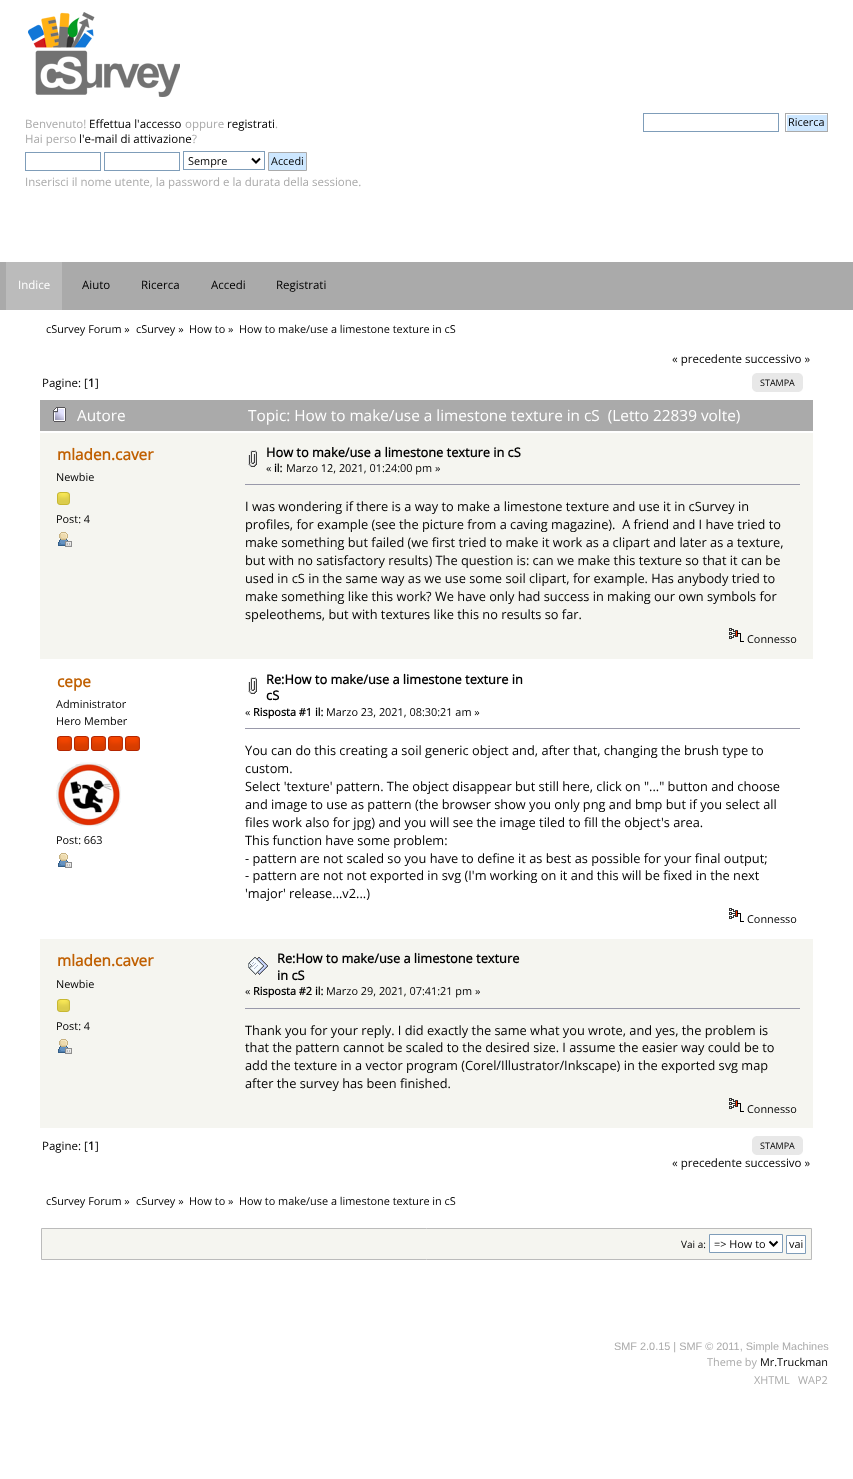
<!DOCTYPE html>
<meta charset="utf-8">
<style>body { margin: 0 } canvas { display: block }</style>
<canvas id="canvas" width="853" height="1479"></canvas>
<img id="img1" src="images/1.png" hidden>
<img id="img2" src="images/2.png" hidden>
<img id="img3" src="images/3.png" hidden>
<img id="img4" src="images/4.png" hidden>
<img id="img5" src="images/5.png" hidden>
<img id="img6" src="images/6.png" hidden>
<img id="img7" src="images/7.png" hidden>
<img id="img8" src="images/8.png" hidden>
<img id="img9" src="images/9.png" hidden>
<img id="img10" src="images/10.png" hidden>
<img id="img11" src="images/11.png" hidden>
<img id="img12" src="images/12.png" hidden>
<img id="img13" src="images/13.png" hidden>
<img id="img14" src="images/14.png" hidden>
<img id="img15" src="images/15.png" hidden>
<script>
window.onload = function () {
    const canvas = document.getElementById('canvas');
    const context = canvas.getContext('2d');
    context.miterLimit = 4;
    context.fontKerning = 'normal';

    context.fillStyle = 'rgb(255, 255, 255)';
    context.fillRect(0, 0, 853, 1479);
    context.drawImage(document.getElementById('img1'), 28, 12, 152, 85);
    context.strokeStyle = 'rgb(127, 157, 185)';
    context.strokeRect(25.5, 152.5, 75, 18);
    context.strokeRect(104.5, 152.5, 75, 18);
    context.strokeRect(183.5, 151.5, 81, 18);
    context.beginPath();
    context.moveTo(252, 158.5);
    context.lineTo(256, 162.5);
    context.lineTo(260, 158.5);
    context.strokeStyle = 'rgb(0, 0, 0)';
    context.lineWidth = 2;
    context.stroke();
    context.fillStyle = 'rgb(205, 231, 255)';
    context.beginPath();
    context.rect(268.5, 152.5, 38, 18);
    context.fill();
    context.strokeStyle = 'rgb(170, 170, 170)';
    context.lineWidth = 1;
    context.stroke();
    context.strokeStyle = 'rgb(127, 157, 185)';
    context.strokeRect(643.5, 113.5, 135, 18);
    context.drawImage(document.getElementById('img2'), 786, 114, 41, 17);
    context.strokeStyle = 'rgb(170, 170, 170)';
    context.strokeRect(785.5, 113.5, 42, 18);
    context.fillStyle = 'rgb(170, 170, 170)';
    context.fillRect(0, 262, 853, 48);
    context.fillStyle = 'rgb(187, 187, 187)';
    context.fillRect(6, 262, 56, 48);
    context.fillStyle = 'rgb(232, 232, 232)';
    context.fillRect(756, 373, 43, 19);
    context.drawImage(document.getElementById('img3'), 752, 373, 4, 19);
    context.drawImage(document.getElementById('img4'), 799, 373, 4, 19);
    context.fillStyle = 'rgb(170, 170, 170)';
    context.fillRect(40, 400, 773, 31);
    context.drawImage(document.getElementById('img5'), 53, 407, 13, 15);
    context.fillStyle = 'rgb(245, 245, 240)';
    context.fillRect(40, 433, 773, 226);
    context.drawImage(document.getElementById('img6'), 57, 492, 13, 13);
    context.drawImage(document.getElementById('img7'), 58, 532, 14, 15);
    context.drawImage(document.getElementById('img8'), 248, 450, 9, 17);
    context.fillStyle = 'rgb(153, 153, 170)';
    context.fillRect(245, 484, 555, 1);
    context.drawImage(document.getElementById('img9'), 729, 628, 15, 14);
    context.drawImage(document.getElementById('img10'), 57, 736, 15, 15);
    context.drawImage(document.getElementById('img10'), 74, 736, 15, 15);
    context.drawImage(document.getElementById('img10'), 91, 736, 15, 15);
    context.drawImage(document.getElementById('img10'), 108, 736, 15, 15);
    context.drawImage(document.getElementById('img10'), 125, 736, 15, 15);
    context.drawImage(document.getElementById('img11'), 56, 762, 65, 65);
    context.drawImage(document.getElementById('img12'), 58, 853, 14, 15);
    context.drawImage(document.getElementById('img13'), 248, 677, 9, 17);
    context.fillRect(245, 728, 555, 1);
    context.drawImage(document.getElementById('img14'), 729, 908, 15, 14);
    context.fillStyle = 'rgb(245, 245, 240)';
    context.fillRect(40, 939, 773, 189);
    context.drawImage(document.getElementById('img6'), 57, 999, 13, 13);
    context.drawImage(document.getElementById('img7'), 58, 1039, 14, 15);
    context.drawImage(document.getElementById('img15'), 248, 957, 20, 18);
    context.fillStyle = 'rgb(153, 153, 170)';
    context.fillRect(245, 1008, 555, 1);
    context.drawImage(document.getElementById('img9'), 729, 1098, 15, 14);
    context.fillStyle = 'rgb(232, 232, 232)';
    context.fillRect(756, 1136, 43, 19);
    context.drawImage(document.getElementById('img3'), 752, 1136, 4, 19);
    context.drawImage(document.getElementById('img4'), 799, 1136, 4, 19);
    context.fillStyle = 'rgb(245, 245, 240)';
    context.beginPath();
    context.rect(41.5, 1228.5, 770, 31);
    context.fill();
    context.strokeStyle = 'rgb(187, 187, 187)';
    context.stroke();
    context.fillStyle = 'rgb(255, 255, 255)';
    context.beginPath();
    context.rect(709.5, 1234.5, 73, 18);
    context.fill();
    context.strokeStyle = 'rgb(127, 157, 185)';
    context.stroke();
    context.beginPath();
    context.moveTo(769.5, 1241.5);
    context.lineTo(773.5, 1245.5);
    context.lineTo(777.5, 1241.5);
    context.strokeStyle = 'rgb(0, 0, 0)';
    context.lineWidth = 2;
    context.stroke();
    context.beginPath();
    context.rect(786.5, 1235.5, 19, 18);
    context.fill();
    context.strokeStyle = 'rgb(127, 157, 185)';
    context.lineWidth = 1;
    context.stroke();
    context.font = '11.5px Open Sans';
    context.fillStyle = 'rgb(170, 170, 170)';
    context.fillText('Benvenuto!', 25, 128);
    context.fillStyle = 'rgb(0, 0, 0)';
    context.fillText('Effettua l\'accesso', 89, 128);
    context.fillStyle = 'rgb(170, 170, 170)';
    context.fillText('oppure', 185, 128);
    context.fillStyle = 'rgb(0, 0, 0)';
    context.fillText('registrati', 227, 128);
    context.fillStyle = 'rgb(170, 170, 170)';
    context.fillText('.', 275, 128);
    context.fillText('Hai perso', 25, 143);
    context.fillStyle = 'rgb(0, 0, 0)';
    context.fillText('l\'e-mail di attivazione', 79, 143);
    context.fillStyle = 'rgb(170, 170, 170)';
    context.fillText('?', 192, 143);
    context.font = '10.9px Open Sans';
    context.fillStyle = 'rgb(0, 0, 0)';
    context.fillText('Sempre', 188, 165);
    context.fillText('Accedi', 271, 165);
    context.font = '11.5px Open Sans';
    context.fillStyle = 'rgb(170, 170, 170)';
    context.fillText('Inserisci il nome utente, la password e la durata della sessione.', 25, 186);
    context.font = '10.9px Open Sans';
    context.fillStyle = 'rgb(0, 0, 0)';
    context.fillText('Ricerca', 788, 126);
    context.font = '11.5px Open Sans';
    context.fillStyle = 'rgb(255, 255, 255)';
    context.fillText('Indice', 18, 289);
    context.fillStyle = 'rgb(0, 0, 0)';
    context.fillText('Aiuto', 82, 289);
    context.fillText('Ricerca', 141, 289);
    context.fillText('Accedi', 211, 289);
    context.fillText('Registrati', 276, 289);
    context.font = '10.9px Open Sans';
    context.fillText('cSurvey Forum »', 46, 333);
    context.fillText('cSurvey »', 136, 333);
    context.fillText('How to »', 189, 333);
    context.fillText('How to make/use a limestone texture in cS', 239, 333);
    context.font = '11.5px Open Sans';
    context.fillText('« precedente successivo »', 672, 363);
    context.fillText('Pagine: [', 42, 387);
    context.font = 'bold 11.5px Open Sans';
    context.fillText('1', 88, 387);
    context.font = '11.5px Open Sans';
    context.fillText(']', 95, 387);
    context.font = '9px Open Sans';
    context.fillText('STAMPA', 760, 386);
    context.font = '15.35px Open Sans';
    context.fillStyle = 'rgb(255, 255, 255)';
    context.fillText('Autore', 77, 421);
    context.fillText('Topic: How to make/use a limestone texture in cS  (Letto 22839 volte)', 248, 421);
    context.font = 'bold 15.35px Open Sans';
    context.fillStyle = 'rgb(192, 96, 2)';
    context.fillText('mladen.caver', 57, 460);
    context.font = '10.9px Open Sans';
    context.fillStyle = 'rgb(0, 0, 0)';
    context.fillText('Newbie', 56, 481);
    context.fillText('Post: 4', 56, 523);
    context.font = 'bold 12.8px Open Sans';
    context.fillText('How to make/use a limestone texture in cS', 266, 457);
    context.font = '10.9px Open Sans';
    context.fillText('«', 266, 472);
    context.font = 'bold 10.9px Open Sans';
    context.fillText('il:', 274, 472);
    context.font = '10.9px Open Sans';
    context.fillText('Marzo 12, 2021, 01:24:00 pm »', 286, 472);
    context.font = '12.8px Open Sans';
    context.fillText('I was wondering if there is a way to make a limestone texture and use it in cSurvey in', 245, 511);
    context.fillText('profiles, for example (see the picture from a caving magazine).  A friend and I have tried to', 245, 529);
    context.fillText('make something but failed (we first tried to make it work as a clipart and later as a texture,', 245, 547);
    context.fillText('but with no satisfactory results) The question is: can we make this texture so that it can be', 245, 565);
    context.fillText('used in cS in the same way as we use some soil clipart, for example. Has anybody tried to', 245, 583);
    context.fillText('make something like this work? We have only had success in making our own symbols for', 245, 601);
    context.fillText('speleothems, but with textures like this no results so far.', 245, 619);
    context.font = '10.9px Open Sans';
    context.fillText('Connesso', 747, 643);
    context.font = 'bold 15.35px Open Sans';
    context.fillStyle = 'rgb(192, 96, 2)';
    context.fillText('cepe', 57, 687);
    context.font = '10.9px Open Sans';
    context.fillStyle = 'rgb(0, 0, 0)';
    context.fillText('Administrator', 56, 708);
    context.fillText('Hero Member', 56, 725);
    context.fillText('Post: 663', 56, 844);
    context.font = 'bold 12.8px Open Sans';
    context.fillText('Re:How to make/use a limestone texture in', 266, 684);
    context.fillText('cS', 266, 700);
    context.font = '10.9px Open Sans';
    context.fillText('«', 245, 716);
    context.font = 'bold 10.9px Open Sans';
    context.fillText('Risposta #1 il:', 253, 716);
    context.font = '10.9px Open Sans';
    context.fillText('Marzo 23, 2021, 08:30:21 am »', 326, 716);
    context.font = '12.8px Open Sans';
    context.fillText('You can do this creating a soil generic object and, after that, changing the brush type to', 245, 755);
    context.fillText('custom.', 245, 773);
    context.fillText('Select \'texture\' pattern. The object disappear but still here, click on "..." button and choose', 245, 791);
    context.fillText('and image to use as pattern (the browser show you only png and bmp but if you select all', 245, 809);
    context.fillText('files work also for jpg) and you will see the image tiled to fill the object\'s area.', 245, 827);
    context.fillText('This function have some problem:', 245, 845);
    context.fillText('- pattern are not scaled so you have to define it as best as possible for your final output;', 245, 863);
    context.fillText('- pattern are not not exported in svg (I\'m working on it and this will be fixed in the next', 245, 880);
    context.fillText('\'major\' release...v2...)', 245, 898);
    context.font = '10.9px Open Sans';
    context.fillText('Connesso', 747, 923);
    context.font = 'bold 15.35px Open Sans';
    context.fillStyle = 'rgb(192, 96, 2)';
    context.fillText('mladen.caver', 57, 966);
    context.font = '10.9px Open Sans';
    context.fillStyle = 'rgb(0, 0, 0)';
    context.fillText('Newbie', 56, 988);
    context.fillText('Post: 4', 56, 1030);
    context.font = 'bold 12.8px Open Sans';
    context.fillText('Re:How to make/use a limestone texture', 277, 963);
    context.fillText('in cS', 277, 980);
    context.font = '10.9px Open Sans';
    context.fillText('«', 245, 995);
    context.font = 'bold 10.9px Open Sans';
    context.fillText('Risposta #2 il:', 253, 995);
    context.font = '10.9px Open Sans';
    context.fillText('Marzo 29, 2021, 07:41:21 pm »', 326, 995);
    context.font = '12.8px Open Sans';
    context.fillText('Thank you for your reply. I did exactly the same what you wrote, and yes, the problem is', 245, 1035);
    context.fillText('that the pattern cannot be scaled to the desired size. I assume the easier way could be to', 245, 1052);
    context.fillText('add the texture in a vector program (Corel/Illustrator/Inkscape) in the exported svg map', 245, 1070);
    context.fillText('after the survey has been finished.', 245, 1088);
    context.font = '10.9px Open Sans';
    context.fillText('Connesso', 747, 1113);
    context.font = '11.5px Open Sans';
    context.fillText('Pagine: [', 42, 1150);
    context.font = 'bold 11.5px Open Sans';
    context.fillText('1', 88, 1150);
    context.font = '11.5px Open Sans';
    context.fillText(']', 95, 1150);
    context.font = '9px Open Sans';
    context.fillText('STAMPA', 760, 1149);
    context.font = '11.5px Open Sans';
    context.fillText('« precedente successivo »', 672, 1167);
    context.font = '10.9px Open Sans';
    context.fillText('cSurvey Forum »', 46, 1205);
    context.fillText('cSurvey »', 136, 1205);
    context.fillText('How to »', 189, 1205);
    context.fillText('How to make/use a limestone texture in cS', 239, 1205);
    context.font = '10px Open Sans';
    context.fillText('Vai a:', 681, 1248);
    context.font = '10.9px Open Sans';
    context.fillText('=> How to', 714, 1248);
    context.fillText('vai', 789, 1248);
    context.font = '10.9px Liberation Sans';
    context.fillStyle = 'rgb(170, 170, 170)';
    context.fillText('SMF 2.0.15 | SMF © 2011, Simple Machines', 614, 1350);
    context.font = '10.9px Open Sans';
    context.fillText('Theme by', 707, 1366);
    context.fillStyle = 'rgb(0, 0, 0)';
    context.fillText('Mr.Truckman', 760, 1366);
    context.fillStyle = 'rgb(170, 170, 170)';
    context.fillText('XHTML', 754, 1384);
    context.fillText('WAP2', 798, 1384);
};
</script>
